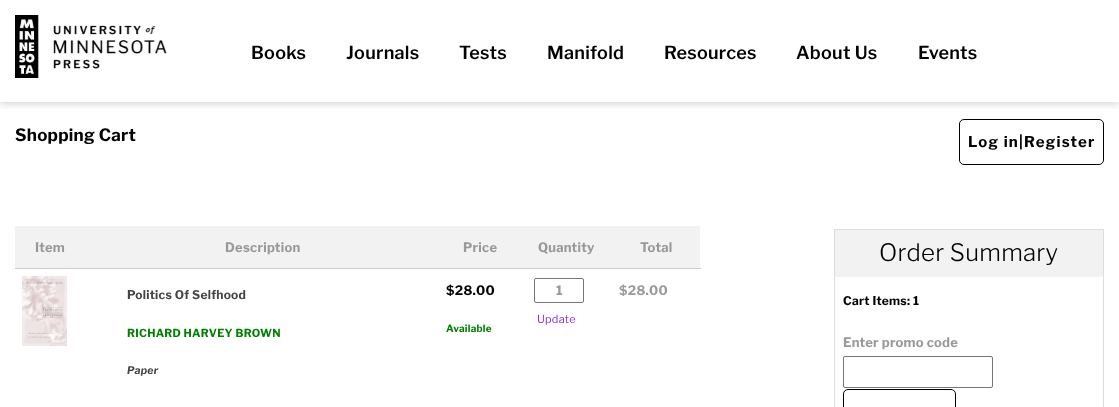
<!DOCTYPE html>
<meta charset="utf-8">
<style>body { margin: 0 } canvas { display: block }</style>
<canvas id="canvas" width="1119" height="407"></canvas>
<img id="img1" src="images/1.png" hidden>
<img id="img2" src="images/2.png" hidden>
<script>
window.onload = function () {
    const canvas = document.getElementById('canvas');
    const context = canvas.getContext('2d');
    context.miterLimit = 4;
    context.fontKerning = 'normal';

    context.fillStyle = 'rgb(255, 255, 255)';
    context.fillRect(0, 0, 1119, 407);
    context.save();
    context.beginPath();
    context.rect(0, 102, 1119, 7);
    context.clip();
    context.fillStyle = 'rgba(0, 0, 0, 0.25)';
    context.filter = 'blur(5px)';
    context.beginPath();
    context.rect(0, 0, 1119, 102);
    context.fill();
    context.filter = 'none';
    context.restore();
    context.drawImage(document.getElementById('img1'), 15, 15, 152, 63);
    context.fillStyle = 'rgb(204, 204, 204)';
    context.fillRect(15, 268, 686, 1);
    context.fillStyle = 'rgb(242, 242, 242)';
    context.fillRect(15, 226, 685, 42);
    context.drawImage(document.getElementById('img2'), 22, 276, 45, 70);
    context.beginPath();
    context.roundRect(534.5, 278.5, 49, 24, 1.5);
    context.strokeStyle = 'rgb(118, 118, 118)';
    context.stroke();
    context.strokeStyle = 'rgb(221, 221, 221)';
    context.strokeRect(834.5, 229.5, 269, 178);
    context.fillRect(835, 230, 268, 47);
    context.beginPath();
    context.roundRect(843.5, 356.5, 149, 31, 1.5);
    context.strokeStyle = 'rgb(118, 118, 118)';
    context.stroke();
    context.beginPath();
    context.roundRect(843.5, 389.5, 112, 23, 4.5);
    context.strokeStyle = 'rgb(0, 0, 0)';
    context.stroke();
    context.beginPath();
    context.roundRect(959.5, 119.5, 144, 45, 4.5);
    context.stroke();
    context.letterSpacing = '0.25px';
    context.font = '600 18px Libre Franklin';
    context.fillStyle = 'rgb(0, 0, 0)';
    context.fillText('Books', 251, 59);
    context.fillText('Journals', 346, 59);
    context.fillText('Tests', 459, 59);
    context.fillText('Manifold', 547, 59);
    context.fillText('Resources', 664, 59);
    context.fillText('About Us', 796, 59);
    context.fillText('Events', 918, 59);
    context.font = 'bold 17px Libre Franklin';
    context.fillText('Shopping Cart', 15, 141);
    context.font = 'bold 13px Libre Franklin';
    context.fillStyle = 'rgb(153, 153, 153)';
    context.fillText('Item', 35, 252);
    context.fillText('Description', 225, 252);
    context.fillText('Price', 463, 252);
    context.fillText('Quantity', 538, 252);
    context.fillText('Total', 640, 252);
    context.font = 'bold 12px Libre Franklin';
    context.fillStyle = 'rgb(68, 68, 68)';
    context.fillText('Politics Of Selfhood', 127, 299);
    context.font = 'bold 11px Libre Franklin';
    context.fillStyle = 'rgb(0, 128, 0)';
    context.fillText('RICHARD HARVEY BROWN', 127, 337);
    context.font = 'italic bold 10.5px Libre Franklin';
    context.fillStyle = 'rgb(68, 68, 68)';
    context.fillText('Paper', 127, 374);
    context.font = 'bold 13px Libre Franklin';
    context.fillStyle = 'rgb(0, 0, 0)';
    context.fillText('$28.00', 446, 295);
    context.font = 'bold 10px Libre Franklin';
    context.fillStyle = 'rgb(0, 128, 0)';
    context.fillText('Available', 446, 332);
    context.letterSpacing = '0px';
    context.font = 'bold 13px Libre Franklin';
    context.fillStyle = 'rgb(153, 153, 153)';
    context.fillText('1', 556, 295);
    context.letterSpacing = '0.25px';
    context.font = '11px Libre Franklin';
    context.fillStyle = 'rgb(138, 43, 226)';
    context.fillText('Update', 537, 323);
    context.font = 'bold 13px Libre Franklin';
    context.fillStyle = 'rgb(153, 153, 153)';
    context.fillText('$28.00', 619, 295);
    context.font = '300 24px Libre Franklin';
    context.fillStyle = 'rgb(0, 0, 0)';
    context.fillText('Order Summary', 879, 261);
    context.font = 'bold 12px Libre Franklin';
    context.fillText('Cart Items: 1', 843, 305);
    context.font = 'bold 13px Libre Franklin';
    context.fillStyle = 'rgb(153, 153, 153)';
    context.fillText('Enter promo code', 843, 347);
    context.letterSpacing = '1.25px';
    context.font = 'bold 15px Libre Franklin';
    context.fillStyle = 'rgb(0, 0, 0)';
    context.fillText('Log in|Register', 968, 147);
};
</script>
